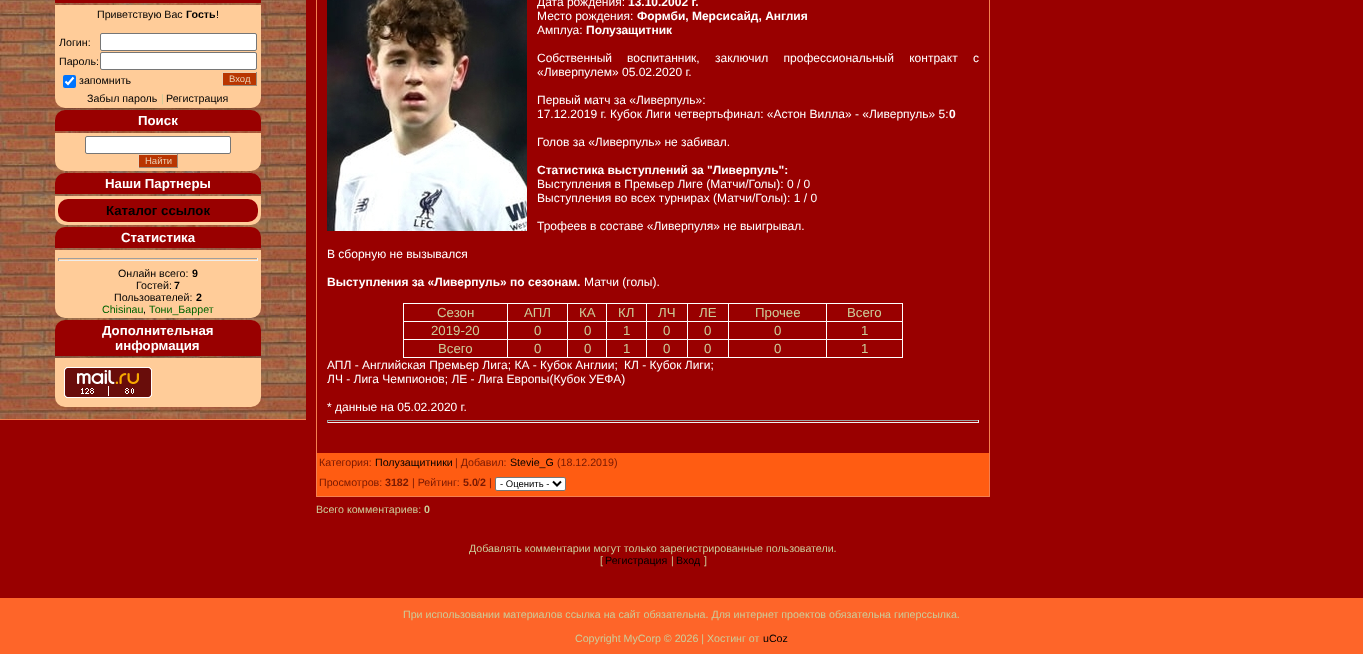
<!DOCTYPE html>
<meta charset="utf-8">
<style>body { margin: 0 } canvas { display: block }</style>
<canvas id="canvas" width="1363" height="654"></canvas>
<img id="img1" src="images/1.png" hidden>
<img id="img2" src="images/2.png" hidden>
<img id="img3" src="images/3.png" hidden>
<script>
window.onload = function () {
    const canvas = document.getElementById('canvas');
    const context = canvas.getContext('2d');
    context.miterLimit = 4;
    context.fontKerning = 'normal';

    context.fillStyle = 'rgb(153, 0, 0)';
    context.fillRect(0, 0, 1363, 654);
    context.drawImage(document.getElementById('img1'), 0, 0, 306, 419);
    context.fillStyle = 'rgb(244, 128, 80)';
    context.fillRect(0, 419, 306, 1);
    context.fillStyle = 'rgb(153, 0, 0)';
    context.fillRect(55, 0, 206, 3);
    context.fillStyle = 'rgb(255, 204, 153)';
    context.beginPath();
    context.roundRect(55, 5, 206, 103, [0, 0, 10, 10]);
    context.fill();
    context.fillStyle = 'rgb(255, 255, 255)';
    context.beginPath();
    context.roundRect(100.5, 33.5, 156, 17, 1.5);
    context.fill();
    context.strokeStyle = 'rgb(118, 118, 118)';
    context.stroke();
    context.beginPath();
    context.roundRect(100.5, 52.5, 156, 17, 1.5);
    context.fill();
    context.stroke();
    context.fillStyle = 'rgb(0, 117, 255)';
    context.beginPath();
    context.roundRect(63, 75, 13, 13, 2);
    context.fill();
    context.beginPath();
    context.moveTo(65.5, 81.5);
    context.lineTo(68, 84);
    context.lineTo(73.5, 77.5);
    context.strokeStyle = 'rgb(255, 255, 255)';
    context.lineWidth = 2.1;
    context.stroke();
    context.fillStyle = 'rgb(185, 54, 1)';
    context.fillRect(223, 73, 33, 12);
    context.fillStyle = 'rgb(235, 209, 180)';
    context.fillRect(222, 72, 35, 1);
    context.fillStyle = 'rgb(157, 139, 120)';
    context.fillRect(256, 72, 1, 14);
    context.fillRect(222, 85, 35, 1);
    context.fillStyle = 'rgb(235, 209, 180)';
    context.fillRect(222, 72, 1, 14);
    context.fillStyle = 'rgb(153, 0, 0)';
    context.beginPath();
    context.roundRect(55, 110, 206, 21, [10, 10, 0, 0]);
    context.fill();
    context.fillStyle = 'rgb(255, 204, 153)';
    context.beginPath();
    context.roundRect(55, 133, 206, 38, [0, 0, 10, 10]);
    context.fill();
    context.fillStyle = 'rgb(255, 255, 255)';
    context.beginPath();
    context.roundRect(85.5, 136.5, 145, 17, 1.5);
    context.fill();
    context.strokeStyle = 'rgb(118, 118, 118)';
    context.lineWidth = 1;
    context.stroke();
    context.fillStyle = 'rgb(185, 54, 1)';
    context.fillRect(139, 155, 38, 12);
    context.fillStyle = 'rgb(235, 209, 180)';
    context.fillRect(138, 154, 40, 1);
    context.fillStyle = 'rgb(157, 139, 120)';
    context.fillRect(177, 154, 1, 14);
    context.fillRect(138, 167, 40, 1);
    context.fillStyle = 'rgb(235, 209, 180)';
    context.fillRect(138, 154, 1, 14);
    context.fillStyle = 'rgb(153, 0, 0)';
    context.beginPath();
    context.roundRect(55, 173, 206, 21, [10, 10, 0, 0]);
    context.fill();
    context.fillStyle = 'rgb(255, 204, 153)';
    context.beginPath();
    context.roundRect(55, 196, 206, 29, [0, 0, 10, 10]);
    context.fill();
    context.fillStyle = 'rgb(153, 0, 0)';
    context.beginPath();
    context.roundRect(58, 199, 200, 23, 10);
    context.fill();
    context.beginPath();
    context.roundRect(55, 227, 206, 21, [10, 10, 0, 0]);
    context.fill();
    context.fillStyle = 'rgb(255, 204, 153)';
    context.beginPath();
    context.roundRect(55, 250, 206, 68, [0, 0, 10, 10]);
    context.fill();
    context.fillStyle = 'rgb(159, 159, 159)';
    context.fillRect(58, 258, 200, 1);
    context.fillStyle = 'rgb(238, 238, 238)';
    context.fillRect(257, 258, 1, 3);
    context.fillRect(58, 260, 200, 1);
    context.fillStyle = 'rgb(159, 159, 159)';
    context.fillRect(58, 258, 1, 3);
    context.fillStyle = 'rgb(153, 0, 0)';
    context.beginPath();
    context.roundRect(55, 320, 206, 36, [10, 10, 0, 0]);
    context.fill();
    context.fillStyle = 'rgb(255, 204, 153)';
    context.beginPath();
    context.roundRect(55, 358, 206, 49, [0, 0, 10, 10]);
    context.fill();
    context.drawImage(document.getElementById('img2'), 64, 367, 88, 31);
    context.strokeStyle = 'rgb(244, 128, 80)';
    context.strokeRect(316.5, -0.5, 673, 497);
    context.drawImage(document.getElementById('img3'), 327, 0, 200, 231);
    context.fillStyle = 'rgb(255, 255, 255)';
    context.fillRect(403, 303, 500, 1);
    context.fillRect(902, 303, 1, 55);
    context.fillRect(403, 357, 500, 1);
    context.fillRect(403, 303, 1, 55);
    context.fillRect(826, 321, 77, 1);
    context.fillRect(826, 339, 77, 1);
    context.fillRect(826, 339, 1, 19);
    context.fillRect(728, 339, 99, 1);
    context.fillRect(826, 321, 1, 19);
    context.fillRect(728, 321, 99, 1);
    context.fillRect(728, 339, 1, 19);
    context.fillRect(687, 339, 42, 1);
    context.fillRect(728, 321, 1, 19);
    context.fillRect(687, 321, 42, 1);
    context.fillRect(687, 339, 1, 19);
    context.fillRect(646, 339, 42, 1);
    context.fillRect(687, 321, 1, 19);
    context.fillRect(646, 321, 42, 1);
    context.fillRect(646, 339, 1, 19);
    context.fillRect(606, 339, 41, 1);
    context.fillRect(646, 321, 1, 19);
    context.fillRect(606, 321, 41, 1);
    context.fillRect(606, 339, 1, 19);
    context.fillRect(567, 339, 40, 1);
    context.fillRect(606, 321, 1, 19);
    context.fillRect(567, 321, 40, 1);
    context.fillRect(567, 339, 1, 19);
    context.fillRect(507, 339, 61, 1);
    context.fillRect(567, 321, 1, 19);
    context.fillRect(507, 321, 61, 1);
    context.fillRect(507, 339, 1, 19);
    context.fillRect(403, 339, 105, 1);
    context.fillRect(507, 321, 1, 19);
    context.fillRect(403, 321, 105, 1);
    context.fillRect(507, 303, 1, 19);
    context.fillRect(567, 303, 1, 19);
    context.fillRect(606, 303, 1, 19);
    context.fillRect(646, 303, 1, 19);
    context.fillRect(687, 303, 1, 19);
    context.fillRect(728, 303, 1, 19);
    context.fillRect(826, 303, 1, 19);
    context.fillStyle = 'rgb(159, 159, 159)';
    context.fillRect(327, 420, 652, 1);
    context.fillStyle = 'rgb(238, 238, 238)';
    context.fillRect(978, 420, 1, 3);
    context.fillRect(327, 422, 652, 1);
    context.fillStyle = 'rgb(159, 159, 159)';
    context.fillRect(327, 420, 1, 3);
    context.fillStyle = 'rgb(255, 92, 18)';
    context.fillRect(317, 453, 672, 43);
    context.fillStyle = 'rgb(255, 255, 255)';
    context.beginPath();
    context.roundRect(495.5, 477.5, 70, 13, 1.5);
    context.fill();
    context.strokeStyle = 'rgb(118, 118, 118)';
    context.stroke();
    context.beginPath();
    context.moveTo(553, 481.5);
    context.lineTo(557, 485.5);
    context.lineTo(561, 481.5);
    context.strokeStyle = 'rgb(0, 0, 0)';
    context.lineWidth = 2;
    context.stroke();
    context.fillStyle = 'rgb(254, 101, 41)';
    context.fillRect(0, 598, 1363, 56);
    context.font = '10.67px Liberation Sans';
    context.fillStyle = 'rgb(0, 0, 0)';
    context.fillText('Приветствую Вас', 97, 18);
    context.font = 'bold 10.67px Liberation Sans';
    context.fillText('Гость', 186, 18);
    context.font = '10.67px Liberation Sans';
    context.fillText('!', 216, 18);
    context.fillText('Логин:', 59, 46);
    context.fillText('Пароль:', 59, 65);
    context.fillText('запомнить', 79, 84);
    context.font = '9.5px Liberation Sans';
    context.fillStyle = 'rgb(235, 209, 180)';
    context.fillText('Вход', 229, 82);
    context.font = '10.67px Liberation Sans';
    context.fillStyle = 'rgb(0, 0, 0)';
    context.fillText('Забыл пароль', 87, 102);
    context.fillStyle = 'rgb(204, 204, 153)';
    context.fillText('|', 161, 102);
    context.fillStyle = 'rgb(0, 0, 0)';
    context.fillText('Регистрация', 166, 102);
    context.font = 'bold 13.25px Liberation Sans';
    context.fillStyle = 'rgb(255, 255, 255)';
    context.fillText('Поиск', 138, 125);
    context.font = '9.5px Liberation Sans';
    context.fillStyle = 'rgb(235, 209, 180)';
    context.fillText('Найти', 145, 164);
    context.font = 'bold 13.25px Liberation Sans';
    context.fillStyle = 'rgb(255, 255, 255)';
    context.fillText('Наши Партнеры', 105, 188);
    context.fillStyle = 'rgb(0, 0, 0)';
    context.fillText('Каталог ссылок', 106, 215);
    context.fillStyle = 'rgb(255, 255, 255)';
    context.fillText('Статистика', 121, 242);
    context.font = '10.67px Liberation Sans';
    context.fillStyle = 'rgb(0, 0, 0)';
    context.fillText('Онлайн всего:', 118, 277);
    context.font = 'bold 10.67px Liberation Sans';
    context.fillText('9', 192, 277);
    context.font = '10.67px Liberation Sans';
    context.fillText('Гостей:', 136, 289);
    context.font = 'bold 10.67px Liberation Sans';
    context.fillText('7', 174, 289);
    context.font = '10.67px Liberation Sans';
    context.fillText('Пользователей:', 114, 301);
    context.font = 'bold 10.67px Liberation Sans';
    context.fillText('2', 196, 301);
    context.font = '10.67px Liberation Sans';
    context.fillStyle = 'rgb(0, 100, 0)';
    context.fillText('Chisinau', 102, 313);
    context.fillStyle = 'rgb(0, 0, 0)';
    context.fillText(',', 143, 313);
    context.fillStyle = 'rgb(0, 100, 0)';
    context.fillText('Тони_Баррет', 149, 313);
    context.font = 'bold 13.25px Liberation Sans';
    context.fillStyle = 'rgb(255, 255, 255)';
    context.fillText('Дополнительная', 102, 335);
    context.fillText('информация', 115, 350);
    context.font = '12px Liberation Sans';
    context.fillText('Дата рождения:', 537, 6);
    context.font = 'bold 12px Liberation Sans';
    context.fillText('13.10.2002 г.', 628, 6);
    context.font = '12px Liberation Sans';
    context.fillText('Место рождения:', 537, 20);
    context.font = 'bold 12px Liberation Sans';
    context.fillText('Формби, Мерсисайд, Англия', 637, 20);
    context.font = '12px Liberation Sans';
    context.fillText('Амплуа:', 537, 34);
    context.font = 'bold 12px Liberation Sans';
    context.fillText('Полузащитник', 586, 34);
    context.font = '12px Liberation Sans';
    context.fillText('Собственный', 537, 62);
    context.wordSpacing = '12px';
    context.fillText('воспитанник, заключил профессиональный контракт с', 627, 62);
    context.wordSpacing = '0px';
    context.fillText('«Ливерпулем» 05.02.2020 г.', 537, 76);
    context.fillText('Первый матч за «Ливерпуль»:', 537, 104);
    context.fillText('17.12.2019 г. Кубок Лиги четвертьфинал: «Астон Вилла» - «Ливерпуль» 5:', 537, 118);
    context.font = 'bold 12px Liberation Sans';
    context.fillText('0', 949, 118);
    context.font = '12px Liberation Sans';
    context.fillText('Голов за «Ливерпуль» не забивал.', 537, 146);
    context.font = 'bold 12px Liberation Sans';
    context.fillText('Статистика выступлений за "Ливерпуль":', 537, 174);
    context.font = '12px Liberation Sans';
    context.fillText('Выступления в Премьер Лиге (Матчи/Голы): 0 / 0', 537, 188);
    context.fillText('Выступления во всех турнирах (Матчи/Голы): 1 / 0', 537, 202);
    context.fillText('Трофеев в составе «Ливерпуля» не выигрывал.', 537, 230);
    context.fillText('В сборную не вызывался', 327, 258);
    context.font = 'bold 12px Liberation Sans';
    context.fillText('Выступления за «Ливерпуль» по сезонам.', 327, 286);
    context.font = '12px Liberation Sans';
    context.fillText('Матчи (голы).', 584, 286);
    context.font = '13.25px Liberation Sans';
    context.fillStyle = 'rgb(204, 204, 153)';
    context.fillText('Сезон', 437, 317);
    context.fillText('АПЛ', 524, 317);
    context.fillText('КА', 579, 317);
    context.fillText('КЛ', 618, 317);
    context.fillText('ЛЧ', 658, 317);
    context.fillText('ЛЕ', 699, 317);
    context.fillText('Прочее', 755, 317);
    context.fillText('Всего', 847, 317);
    context.fillText('2019-20', 431, 335);
    context.fillText('0', 534, 335);
    context.fillText('0', 584, 335);
    context.fillText('1', 623, 335);
    context.fillText('0', 663, 335);
    context.fillText('0', 704, 335);
    context.fillText('0', 774, 335);
    context.fillText('1', 861, 335);
    context.fillText('Всего', 438, 353);
    context.fillText('0', 534, 353);
    context.fillText('0', 584, 353);
    context.fillText('1', 623, 353);
    context.fillText('0', 663, 353);
    context.fillText('0', 704, 353);
    context.fillText('0', 774, 353);
    context.fillText('1', 861, 353);
    context.font = '12px Liberation Sans';
    context.fillStyle = 'rgb(255, 255, 255)';
    context.fillText('АПЛ - Английская Премьер Лига; КА - Кубок Англии;', 327, 369);
    context.fillText('КЛ - Кубок Лиги;', 624, 369);
    context.fillText('ЛЧ - Лига Чемпионов; ЛЕ - Лига Европы(Кубок УЕФА)', 327, 383);
    context.fillText('* данные на 05.02.2020 г.', 327, 411);
    context.font = '10.67px Liberation Sans';
    context.fillStyle = 'rgb(120, 25, 3)';
    context.fillText('Категория:', 319, 466);
    context.fillStyle = 'rgb(0, 0, 0)';
    context.fillText('Полузащитники', 375, 466);
    context.fillStyle = 'rgb(120, 25, 3)';
    context.fillText('| Добавил:', 455, 466);
    context.fillStyle = 'rgb(0, 0, 0)';
    context.fillText('Stevie_G', 510, 466);
    context.fillStyle = 'rgb(120, 25, 3)';
    context.fillText('(18.12.2019)', 557, 466);
    context.fillText('Просмотров:', 319, 486);
    context.font = 'bold 10.67px Liberation Sans';
    context.fillText('3182', 385, 486);
    context.font = '10.67px Liberation Sans';
    context.fillText('| Рейтинг:', 412, 486);
    context.font = 'bold 10.67px Liberation Sans';
    context.fillText('5.0', 463, 486);
    context.font = '10.67px Liberation Sans';
    context.fillText('/', 477, 486);
    context.font = 'bold 10.67px Liberation Sans';
    context.fillText('2', 480, 486);
    context.font = '10.67px Liberation Sans';
    context.fillText('|', 489, 486);
    context.font = '9.5px Liberation Sans';
    context.fillStyle = 'rgb(0, 0, 0)';
    context.fillText('- Оценить -', 500, 487);
    context.font = '10.67px Liberation Sans';
    context.fillStyle = 'rgb(204, 204, 153)';
    context.fillText('Всего комментариев:', 316, 513);
    context.font = 'bold 10.67px Liberation Sans';
    context.fillText('0', 424, 513);
    context.font = '10.67px Liberation Sans';
    context.fillText('Добавлять комментарии могут только зарегистрированные пользователи.', 469, 552);
    context.fillText('[', 600, 564);
    context.fillStyle = 'rgb(0, 0, 0)';
    context.fillText('Регистрация', 605, 564);
    context.fillStyle = 'rgb(204, 204, 153)';
    context.fillText('|', 671, 564);
    context.fillStyle = 'rgb(0, 0, 0)';
    context.fillText('Вход', 676, 564);
    context.fillStyle = 'rgb(204, 204, 153)';
    context.fillText(']', 704, 564);
    context.fillText('При использовании материалов ссылка на сайт обязательна. Для интернет проектов обязательна гиперссылка.', 403, 618);
    context.fillText('Copyright MyCorp © 2026 | Хостинг от', 575, 642);
    context.fillStyle = 'rgb(0, 0, 0)';
    context.fillText('uCoz', 763, 642);
};
</script>
